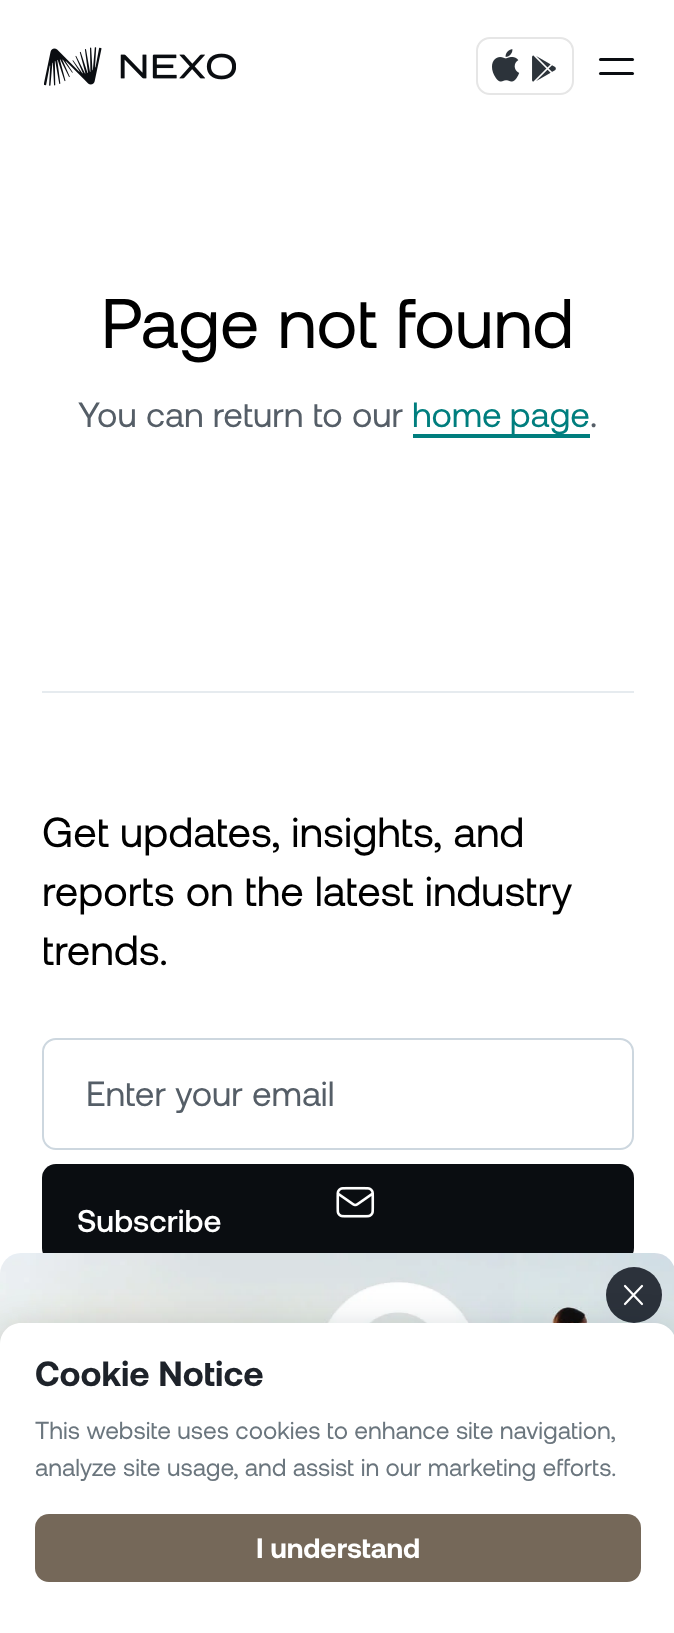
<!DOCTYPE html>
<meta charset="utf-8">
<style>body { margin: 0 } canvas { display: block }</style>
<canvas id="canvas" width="674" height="1633"></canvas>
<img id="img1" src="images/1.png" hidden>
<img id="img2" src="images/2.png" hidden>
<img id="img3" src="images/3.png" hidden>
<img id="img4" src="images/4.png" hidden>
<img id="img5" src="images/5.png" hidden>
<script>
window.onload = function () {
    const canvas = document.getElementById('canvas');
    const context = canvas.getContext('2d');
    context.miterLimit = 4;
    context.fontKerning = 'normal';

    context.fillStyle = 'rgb(255, 255, 255)';
    context.fillRect(0, 0, 674, 1633);
    context.drawImage(document.getElementById('img1'), 44, 47, 192, 39);
    context.beginPath();
    context.roundRect(477, 38, 96, 56, 13);
    context.strokeStyle = 'rgb(230, 230, 230)';
    context.lineWidth = 2;
    context.stroke();
    context.drawImage(document.getElementById('img2'), 492, 49, 28, 33);
    context.drawImage(document.getElementById('img3'), 532, 55, 24, 27);
    context.fillStyle = 'rgb(10, 13, 17)';
    context.beginPath();
    context.roundRect(599, 58, 35, 3, 1.5);
    context.fill();
    context.beginPath();
    context.roundRect(599, 72, 35, 3, 1.5);
    context.fill();
    context.fillStyle = 'rgb(0, 126, 126)';
    context.fillRect(413, 434, 177, 4);
    context.fillStyle = 'rgb(230, 235, 239)';
    context.fillRect(42, 691, 592, 2);
    context.beginPath();
    context.roundRect(43, 1039, 590, 110, 13);
    context.strokeStyle = 'rgb(205, 215, 223)';
    context.stroke();
    context.fillStyle = 'rgb(10, 13, 17)';
    context.beginPath();
    context.roundRect(42, 1164, 592, 98, 14);
    context.fill();
    context.drawImage(document.getElementById('img4'), 336, 1186, 39, 32);
    context.drawImage(document.getElementById('img5'), 0, 1253, 674, 91);
    context.fillStyle = 'rgb(44, 50, 59)';
    context.beginPath();
    context.arc(634, 1295, 28, 0, 2 * Math.PI);
    context.fill();
    context.beginPath();
    context.moveTo(642, 1286);
    context.lineTo(625, 1304);
    context.moveTo(625, 1286);
    context.lineTo(642, 1304);
    context.strokeStyle = 'rgb(255, 255, 255)';
    context.lineWidth = 2.2;
    context.lineCap = 'round';
    context.lineJoin = 'round';
    context.stroke();
    context.fillStyle = 'rgba(4, 25, 39, 0.2)';
    context.filter = 'blur(17.5px)';
    context.beginPath();
    context.roundRect(0, 1330, 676, 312, 21);
    context.fill();
    context.filter = 'none';
    context.fillStyle = 'rgb(255, 255, 255)';
    context.beginPath();
    context.moveTo(21, 1323);
    context.lineTo(655, 1323);
    context.bezierCurveTo(666.5, 1323, 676, 1332.5, 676, 1344);
    context.lineTo(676, 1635);
    context.lineTo(0, 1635);
    context.lineTo(0, 1344);
    context.bezierCurveTo(0, 1332.5, 9.5, 1323, 21, 1323);
    context.closePath();
    context.fill();
    context.fillStyle = 'rgb(117, 104, 89)';
    context.beginPath();
    context.roundRect(35, 1514, 606, 68, 14);
    context.fill();
    context.font = '70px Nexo';
    context.fillStyle = 'rgb(0, 0, 0)';
    context.fillText('Page not found', 101, 348);
    context.font = '35px Nexo';
    context.fillStyle = 'rgb(85, 94, 103)';
    context.fillText('You can return to our', 78, 427);
    context.wordSpacing = '-1px';
    context.fillStyle = 'rgb(0, 126, 126)';
    context.fillText('home page', 412, 427);
    context.wordSpacing = '0px';
    context.fillStyle = 'rgb(85, 94, 103)';
    context.fillText('.', 590, 427);
    context.font = '42px Nexo';
    context.fillStyle = 'rgb(0, 0, 0)';
    context.fillText('Get updates, insights, and', 42, 847);
    context.fillText('reports on the latest industry', 42, 906);
    context.fillText('trends.', 42, 965);
    context.font = '35px Nexo';
    context.fillStyle = 'rgb(85, 94, 103)';
    context.fillText('Enter your email', 86, 1106);
    context.font = '500 31.5px Nexo';
    context.fillStyle = 'rgb(255, 255, 255)';
    context.fillText('Subscribe', 77, 1232);
    context.font = 'bold 35px Nexo';
    context.fillStyle = 'rgb(30, 35, 42)';
    context.fillText('Cookie Notice', 35, 1386);
    context.font = '24.5px Nexo';
    context.fillStyle = 'rgb(107, 118, 126)';
    context.fillText('This website uses cookies to enhance site navigation,', 35, 1439);
    context.fillText('analyze site usage, and assist in our marketing efforts.', 35, 1476);
    context.font = 'bold 28px Nexo';
    context.fillStyle = 'rgb(255, 255, 255)';
    context.fillText('I understand', 256, 1558);
};
</script>
